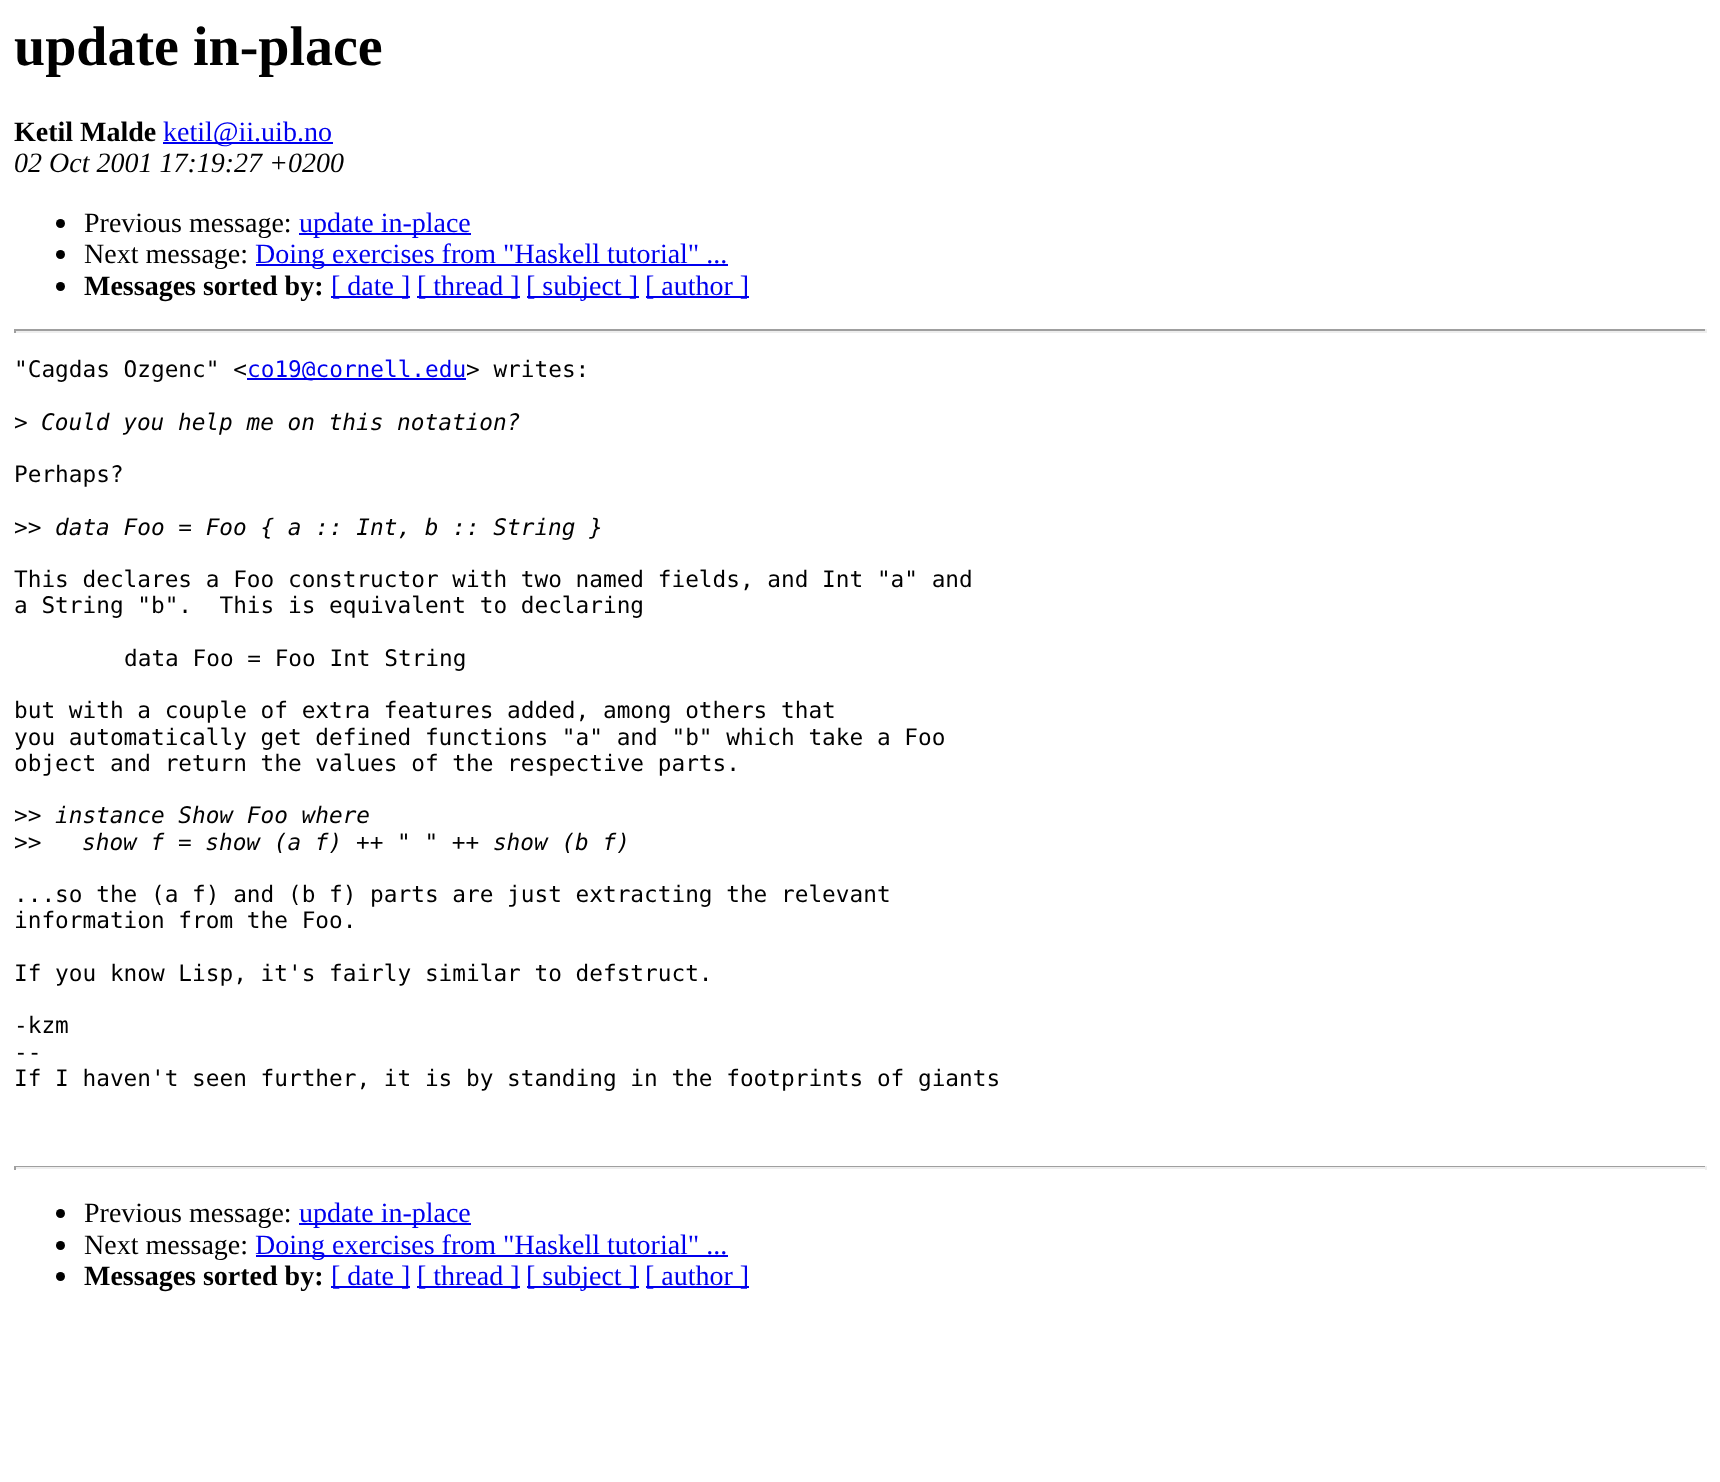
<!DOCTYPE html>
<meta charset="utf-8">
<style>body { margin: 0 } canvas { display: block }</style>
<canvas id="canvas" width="1720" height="1482"></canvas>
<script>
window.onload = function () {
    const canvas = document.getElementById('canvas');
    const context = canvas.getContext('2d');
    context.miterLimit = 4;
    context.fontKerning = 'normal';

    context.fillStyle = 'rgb(255, 255, 255)';
    context.fillRect(0, 0, 1720, 1482);
    context.fillStyle = 'rgb(0, 0, 238)';
    context.fillRect(163, 142, 170, 2);
    context.fillStyle = 'rgb(0, 0, 0)';
    context.beginPath();
    context.arc(60.5, 223.5, 4.5, 0, 2 * Math.PI);
    context.fill();
    context.fillStyle = 'rgb(0, 0, 238)';
    context.fillRect(299, 233, 172, 2);
    context.fillStyle = 'rgb(0, 0, 0)';
    context.beginPath();
    context.arc(60.5, 254.5, 4.5, 0, 2 * Math.PI);
    context.fill();
    context.fillStyle = 'rgb(0, 0, 238)';
    context.fillRect(256, 264, 472, 2);
    context.fillStyle = 'rgb(0, 0, 0)';
    context.beginPath();
    context.arc(60.5, 286.5, 4.5, 0, 2 * Math.PI);
    context.fill();
    context.fillStyle = 'rgb(0, 0, 238)';
    context.fillRect(331, 296, 79, 2);
    context.fillRect(417, 296, 103, 2);
    context.fillRect(527, 296, 112, 2);
    context.fillRect(646, 296, 103, 2);
    context.fillStyle = 'rgb(159, 159, 159)';
    context.fillRect(14, 329, 1692, 2);
    context.fillStyle = 'rgb(238, 238, 238)';
    context.fillRect(1705, 329, 2, 4);
    context.fillRect(14, 331, 1692, 2);
    context.fillStyle = 'rgb(159, 159, 159)';
    context.fillRect(14, 329, 2, 4);
    context.fillStyle = 'rgb(0, 0, 238)';
    context.fillRect(247, 378, 219, 2);
    context.fillStyle = 'rgb(159, 159, 159)';
    context.fillRect(14, 1166, 1692, 1);
    context.fillStyle = 'rgb(238, 238, 238)';
    context.fillRect(1705, 1166, 2, 4);
    context.fillRect(14, 1167, 1692, 2);
    context.fillStyle = 'rgb(159, 159, 159)';
    context.fillRect(14, 1166, 2, 4);
    context.fillStyle = 'rgb(0, 0, 0)';
    context.beginPath();
    context.arc(60.5, 1213.5, 4.5, 0, 2 * Math.PI);
    context.fill();
    context.fillStyle = 'rgb(0, 0, 238)';
    context.fillRect(299, 1223, 172, 2);
    context.fillStyle = 'rgb(0, 0, 0)';
    context.beginPath();
    context.arc(60.5, 1245.5, 4.5, 0, 2 * Math.PI);
    context.fill();
    context.fillStyle = 'rgb(0, 0, 238)';
    context.fillRect(256, 1255, 472, 2);
    context.fillStyle = 'rgb(0, 0, 0)';
    context.beginPath();
    context.arc(60.5, 1276.5, 4.5, 0, 2 * Math.PI);
    context.fill();
    context.fillStyle = 'rgb(0, 0, 238)';
    context.fillRect(331, 1286, 79, 2);
    context.fillRect(417, 1286, 103, 2);
    context.fillRect(527, 1286, 112, 2);
    context.fillRect(646, 1286, 103, 2);
    context.font = 'bold 56px Liberation Serif';
    context.fillStyle = 'rgb(0, 0, 0)';
    context.fillText('update in-place', 14, 65);
    context.font = 'bold 28px Liberation Serif';
    context.fillText('Ketil Malde', 14, 141);
    context.font = '28px Liberation Serif';
    context.fillStyle = 'rgb(0, 0, 238)';
    context.fillText('ketil@ii.uib.no', 163, 141);
    context.font = 'italic 28px Liberation Serif';
    context.fillStyle = 'rgb(0, 0, 0)';
    context.fillText('02 Oct 2001 17:19:27 +0200', 14, 172);
    context.font = '28px Liberation Serif';
    context.fillText('Previous message:', 84, 232);
    context.fillStyle = 'rgb(0, 0, 238)';
    context.fillText('update in-place', 299, 232);
    context.fillStyle = 'rgb(0, 0, 0)';
    context.fillText('Next message:', 84, 263);
    context.fillStyle = 'rgb(0, 0, 238)';
    context.fillText('Doing exercises from "Haskell tutorial" ...', 255, 263);
    context.font = 'bold 28px Liberation Serif';
    context.fillStyle = 'rgb(0, 0, 0)';
    context.fillText('Messages sorted by:', 84, 295);
    context.font = '28px Liberation Serif';
    context.fillStyle = 'rgb(0, 0, 238)';
    context.fillText('[ date ]', 331, 295);
    context.fillText('[ thread ]', 417, 295);
    context.fillText('[ subject ]', 526, 295);
    context.fillText('[ author ]', 645, 295);
    context.font = '22.75px DejaVu Sans Mono';
    context.fillStyle = 'rgb(0, 0, 0)';
    context.fillText('"Cagdas Ozgenc" <', 14, 377);
    context.fillStyle = 'rgb(0, 0, 238)';
    context.fillText('co19@cornell.edu', 247, 377);
    context.fillStyle = 'rgb(0, 0, 0)';
    context.fillText('> writes:', 466, 377);
    context.fillText('>', 14, 430);
    context.font = 'italic 22.75px DejaVu Sans Mono';
    context.fillText('Could you help me on this notation?', 41, 430);
    context.font = '22.75px DejaVu Sans Mono';
    context.fillText('Perhaps?', 14, 482);
    context.fillText('>>', 14, 535);
    context.font = 'italic 22.75px DejaVu Sans Mono';
    context.fillText('data Foo = Foo { a :: Int, b :: String }', 55, 535);
    context.font = '22.75px DejaVu Sans Mono';
    context.fillText('This declares a Foo constructor with two named fields, and Int "a" and', 14, 587);
    context.fillText('a String "b".  This is equivalent to declaring', 14, 613);
    context.fillText('data Foo = Foo Int String', 124, 666);
    context.fillText('but with a couple of extra features added, among others that', 14, 718);
    context.fillText('you automatically get defined functions "a" and "b" which take a Foo', 14, 745);
    context.fillText('object and return the values of the respective parts.', 14, 771);
    context.fillText('>>', 14, 823);
    context.font = 'italic 22.75px DejaVu Sans Mono';
    context.fillText('instance Show Foo where', 55, 823);
    context.font = '22.75px DejaVu Sans Mono';
    context.fillText('>>', 14, 850);
    context.font = 'italic 22.75px DejaVu Sans Mono';
    context.fillText('show f = show (a f) ++ " " ++ show (b f)', 82, 850);
    context.font = '22.75px DejaVu Sans Mono';
    context.fillText('...so the (a f) and (b f) parts are just extracting the relevant', 14, 902);
    context.fillText('information from the Foo.', 14, 928);
    context.fillText('If you know Lisp, it\'s fairly similar to defstruct.', 14, 981);
    context.fillText('-kzm', 14, 1033);
    context.fillText('--', 14, 1060);
    context.fillText('If I haven\'t seen further, it is by standing in the footprints of giants', 14, 1086);
    context.font = '28px Liberation Serif';
    context.fillText('Previous message:', 84, 1222);
    context.fillStyle = 'rgb(0, 0, 238)';
    context.fillText('update in-place', 299, 1222);
    context.fillStyle = 'rgb(0, 0, 0)';
    context.fillText('Next message:', 84, 1254);
    context.fillStyle = 'rgb(0, 0, 238)';
    context.fillText('Doing exercises from "Haskell tutorial" ...', 255, 1254);
    context.font = 'bold 28px Liberation Serif';
    context.fillStyle = 'rgb(0, 0, 0)';
    context.fillText('Messages sorted by:', 84, 1285);
    context.font = '28px Liberation Serif';
    context.fillStyle = 'rgb(0, 0, 238)';
    context.fillText('[ date ]', 331, 1285);
    context.fillText('[ thread ]', 417, 1285);
    context.fillText('[ subject ]', 526, 1285);
    context.fillText('[ author ]', 645, 1285);
};
</script>
